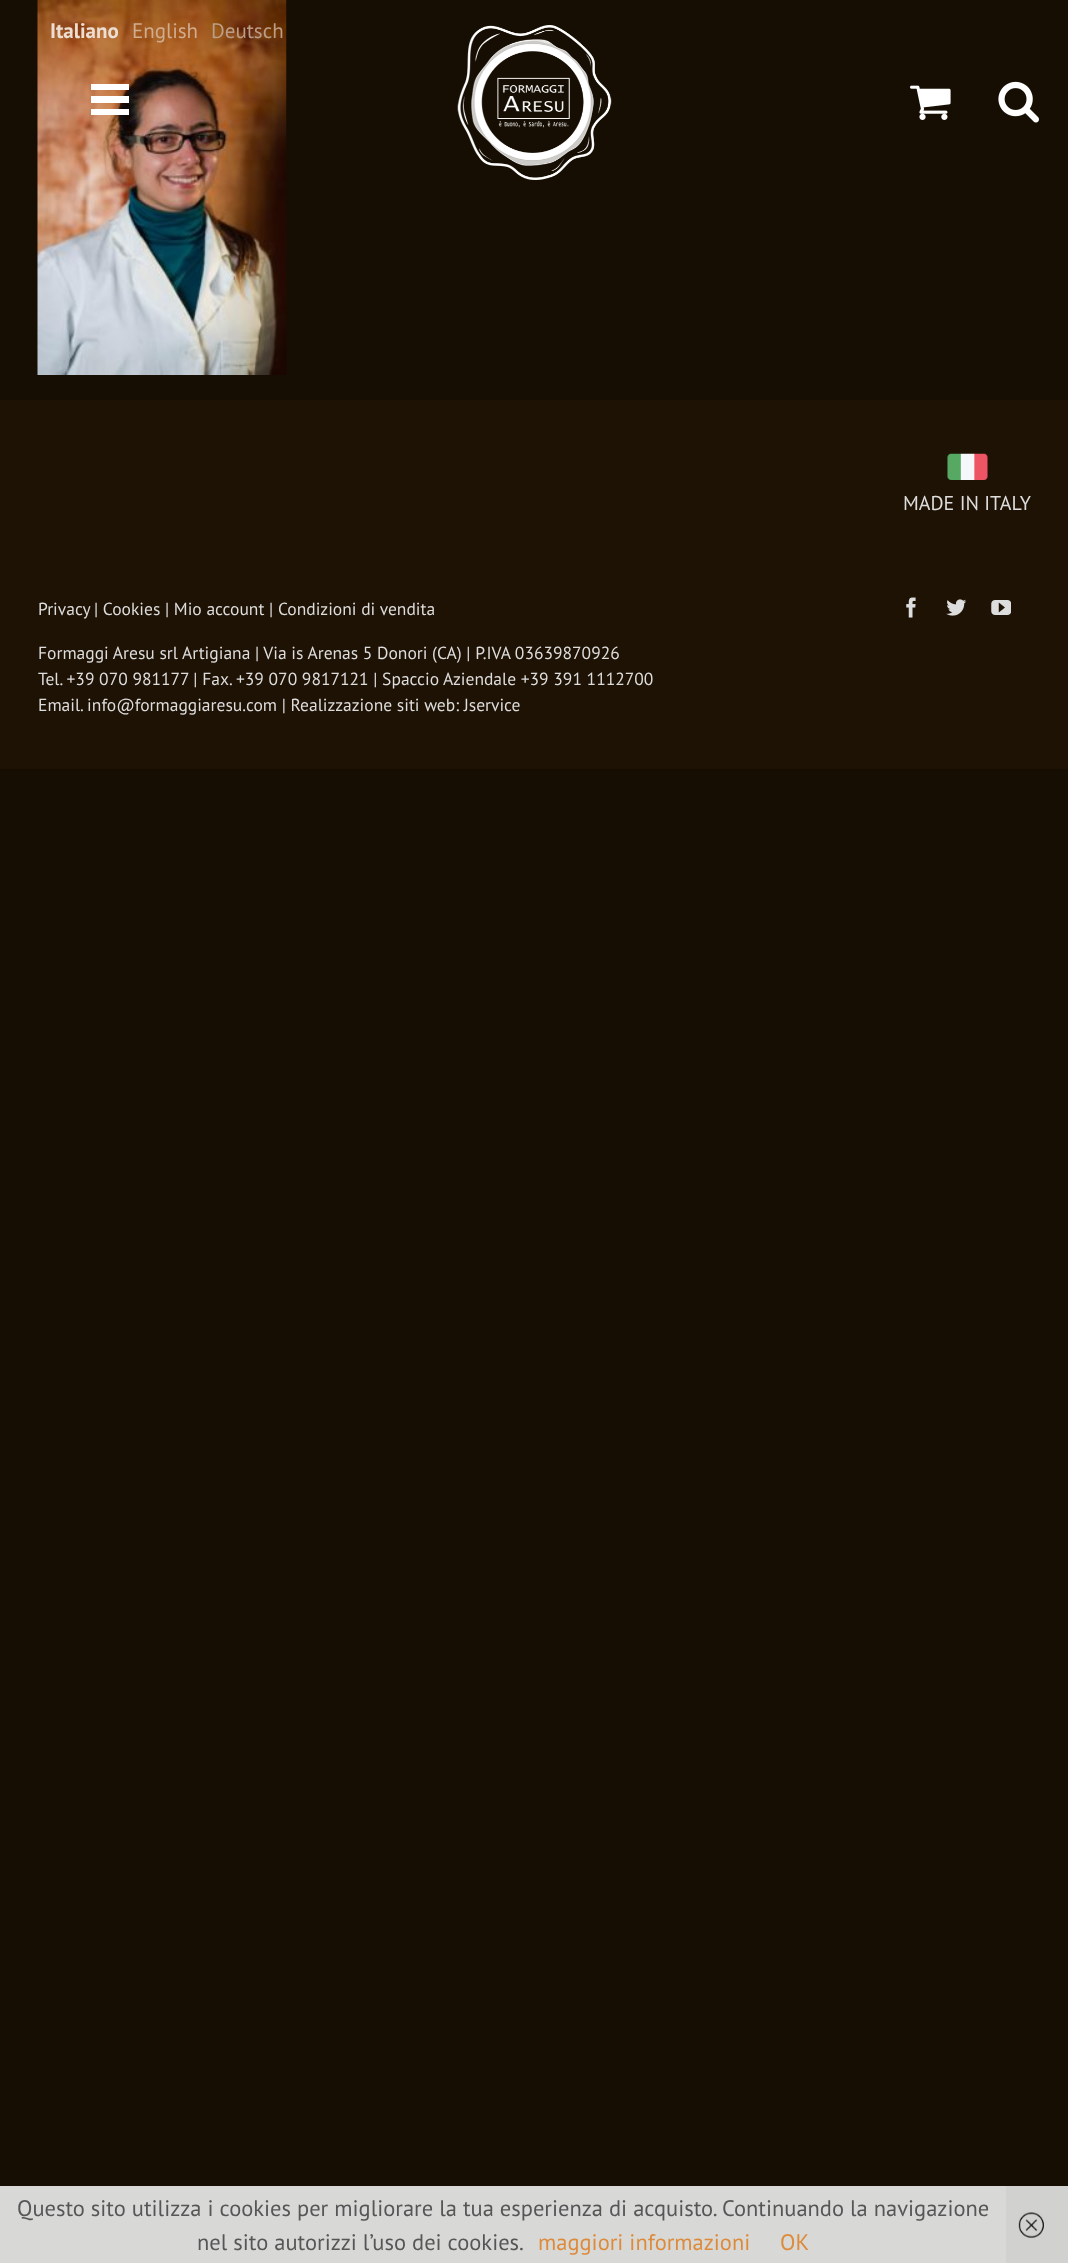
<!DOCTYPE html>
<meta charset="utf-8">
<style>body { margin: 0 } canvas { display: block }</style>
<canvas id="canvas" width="1068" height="2263"></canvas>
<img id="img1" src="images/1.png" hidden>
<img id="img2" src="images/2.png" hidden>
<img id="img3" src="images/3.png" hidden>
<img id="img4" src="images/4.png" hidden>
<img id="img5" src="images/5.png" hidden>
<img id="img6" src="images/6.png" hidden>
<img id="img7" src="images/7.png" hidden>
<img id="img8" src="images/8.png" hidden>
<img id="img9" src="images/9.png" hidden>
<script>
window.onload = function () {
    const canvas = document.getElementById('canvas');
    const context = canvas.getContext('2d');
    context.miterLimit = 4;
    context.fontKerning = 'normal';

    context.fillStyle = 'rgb(22, 14, 3)';
    context.fillRect(0, 0, 1068, 2263);
    context.drawImage(document.getElementById('img1'), 37, 0, 250, 375);
    context.drawImage(document.getElementById('img2'), 457, 25, 155, 155);
    context.fillStyle = 'rgb(255, 255, 255)';
    context.fillRect(91, 84, 38, 6);
    context.fillRect(91, 96, 38, 7);
    context.fillRect(91, 109, 38, 6);
    context.drawImage(document.getElementById('img3'), 910, 85, 41, 35);
    context.drawImage(document.getElementById('img4'), 998, 81, 41, 42);
    context.fillStyle = 'rgb(30, 18, 4)';
    context.fillRect(0, 400, 1068, 369);
    context.drawImage(document.getElementById('img5'), 947, 453, 41, 27);
    context.drawImage(document.getElementById('img6'), 906, 597, 10, 21);
    context.drawImage(document.getElementById('img7'), 946, 599, 21, 17);
    context.drawImage(document.getElementById('img8'), 991, 600, 20, 15);
    context.fillStyle = 'rgb(216, 216, 215)';
    context.fillRect(0, 2186, 1006, 77);
    context.fillStyle = 'rgb(209, 209, 208)';
    context.fillRect(1006, 2186, 62, 77);
    context.drawImage(document.getElementById('img9'), 1018, 2212, 26, 26);
    context.font = 'bold 21px PT Sans';
    context.fillStyle = 'rgb(236, 222, 211)';
    context.fillText('Italiano', 50, 38);
    context.font = '21px PT Sans';
    context.fillStyle = 'rgb(209, 173, 144)';
    context.fillText('English', 132, 38);
    context.fillStyle = 'rgb(188, 158, 136)';
    context.fillText('Deutsch', 211, 38);
    context.font = '20px PT Sans';
    context.fillStyle = 'rgb(221, 221, 221)';
    context.fillText('MADE IN ITALY', 903, 510);
    context.font = '17.5px PT Sans';
    context.fillText('Privacy', 38, 615);
    context.fillText('| Cookies | Mio account | Condizioni di vendita', 94, 615);
    context.fillText('Formaggi Aresu srl Artigiana | Via is Arenas 5 Donori (CA) | P.IVA 03639870926', 38, 659);
    context.fillText('Tel. +39 070 981177 | Fax. +39 070 9817121 | Spaccio Aziendale +39 391 1112700', 38, 685);
    context.fillText('Email. info@formaggiaresu.com | Realizzazione siti web: Jservice', 38, 711);
    context.font = '22.5px PT Sans';
    context.fillStyle = 'rgb(86, 86, 86)';
    context.fillText('Questo sito utilizza i cookies per migliorare la tua esperienza di acquisto. Continuando la navigazione', 17, 2216);
    context.fillText('nel sito autorizzi l’uso dei cookies.', 197, 2250);
    context.fillStyle = 'rgb(221, 139, 59)';
    context.fillText('maggiori informazioni', 538, 2250);
    context.fillText('OK', 780, 2250);
};
</script>
